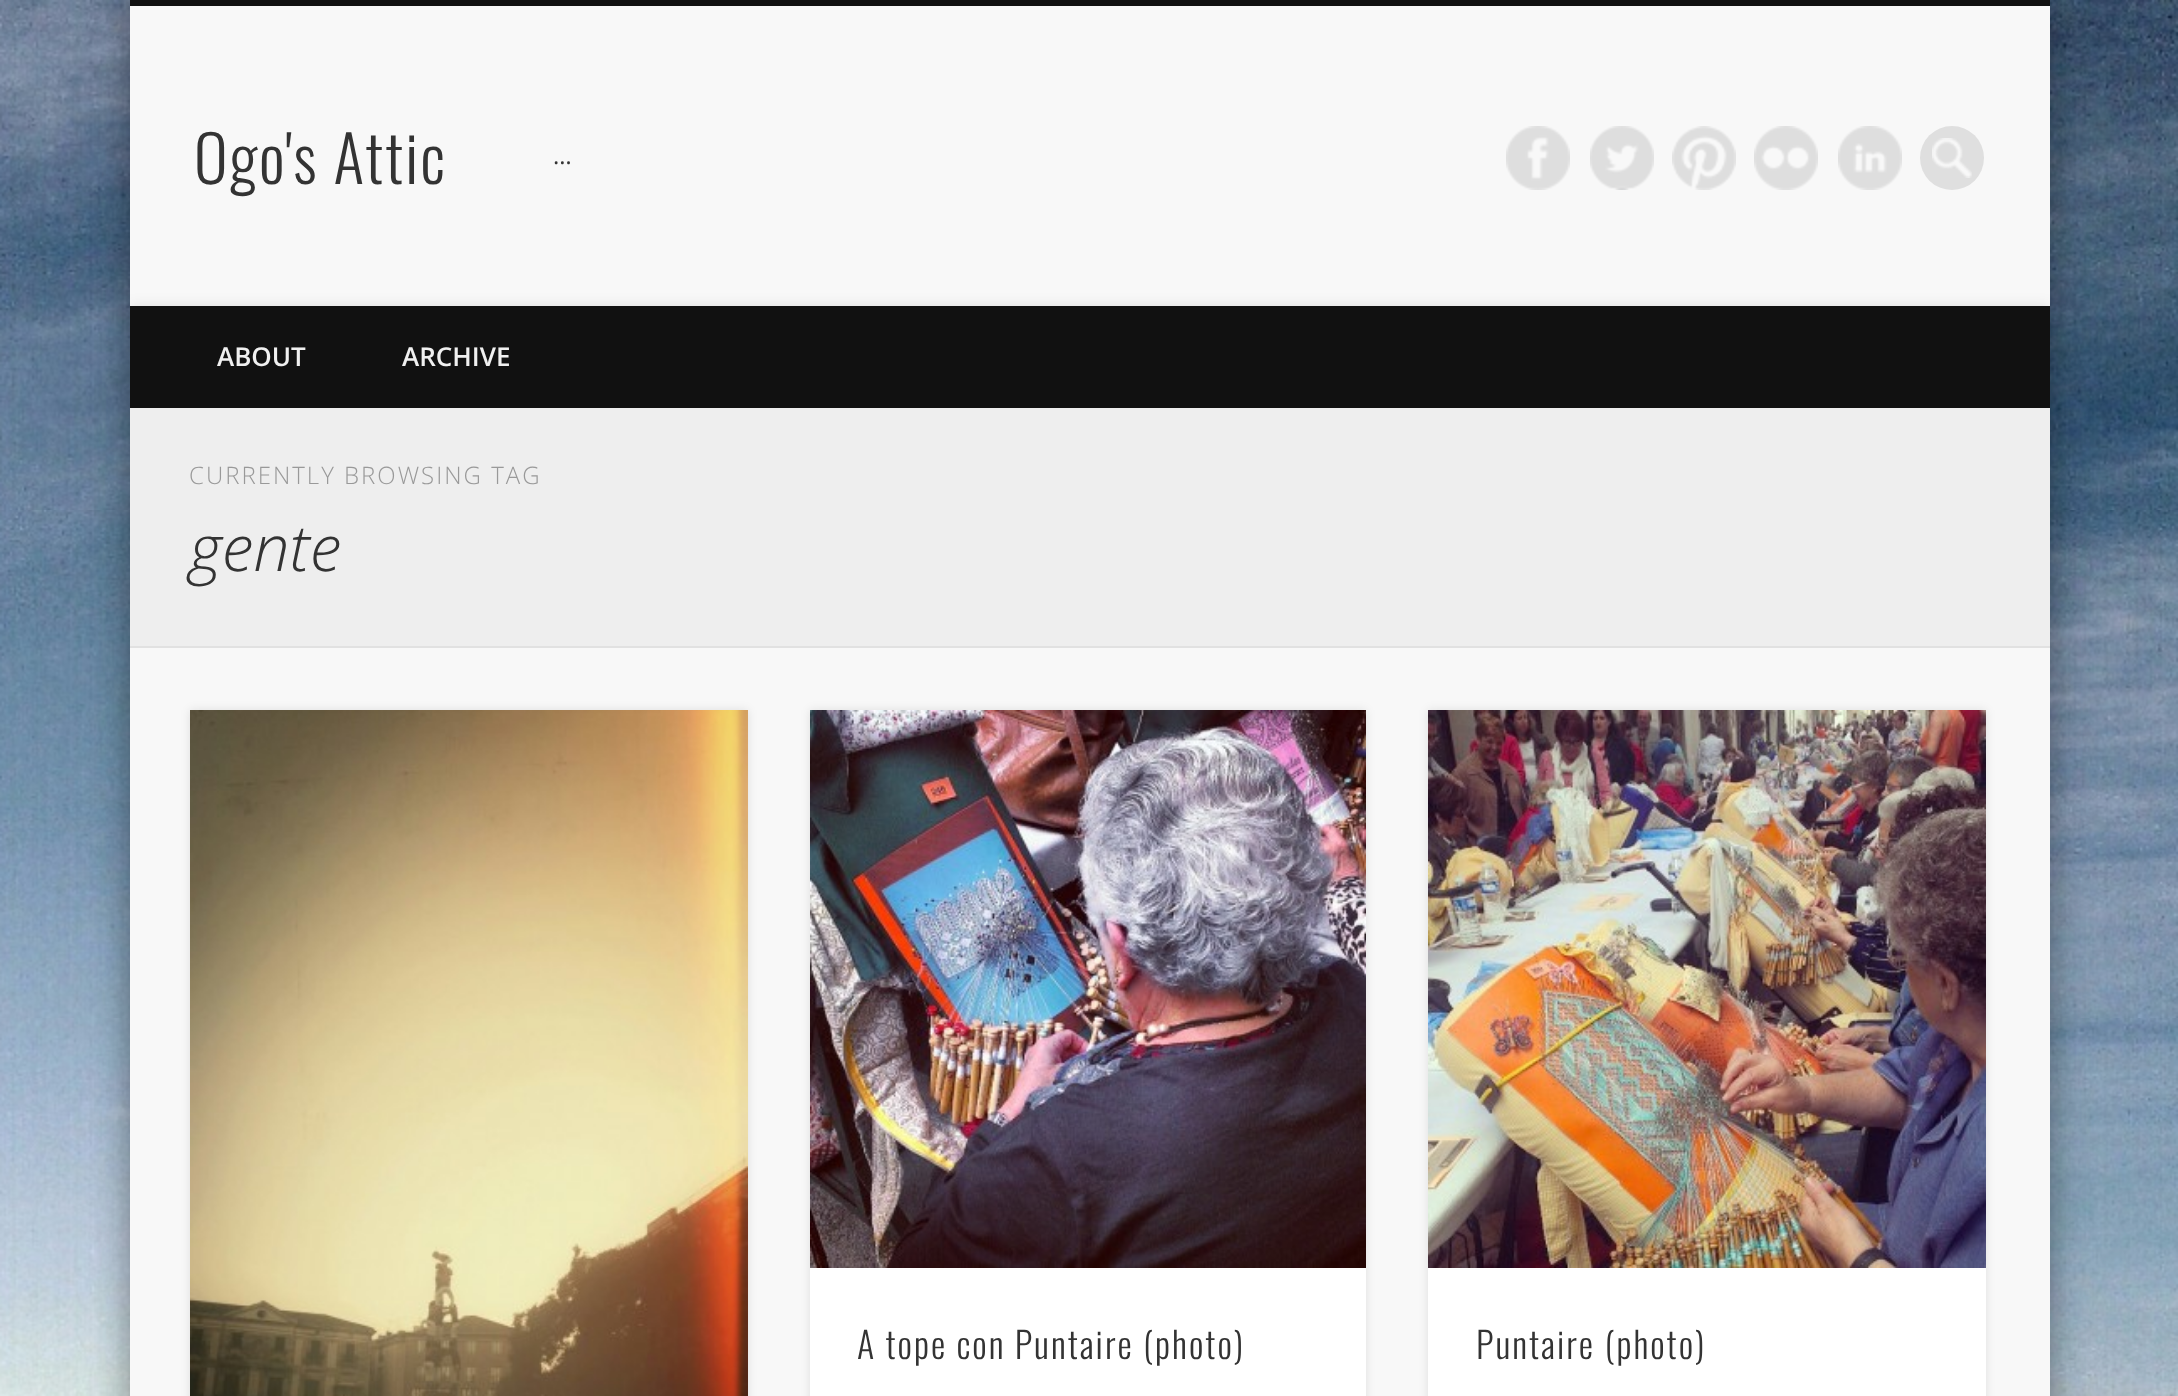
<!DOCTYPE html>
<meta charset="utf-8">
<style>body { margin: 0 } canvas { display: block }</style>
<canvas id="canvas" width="2178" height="1396"></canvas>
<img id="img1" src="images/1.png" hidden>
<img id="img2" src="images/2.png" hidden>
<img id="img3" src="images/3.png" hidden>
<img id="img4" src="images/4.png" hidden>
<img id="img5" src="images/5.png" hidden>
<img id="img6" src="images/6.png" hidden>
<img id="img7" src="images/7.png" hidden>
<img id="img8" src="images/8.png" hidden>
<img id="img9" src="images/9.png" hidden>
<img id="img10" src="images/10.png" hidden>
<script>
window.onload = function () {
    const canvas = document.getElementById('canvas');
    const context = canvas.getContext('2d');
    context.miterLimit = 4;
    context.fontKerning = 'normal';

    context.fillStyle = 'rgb(255, 255, 255)';
    context.fillRect(0, 0, 2178, 1396);
    context.drawImage(document.getElementById('img1'), 0, 0, 2178, 1396);
    context.fillStyle = 'rgba(0, 0, 0, 0.4)';
    context.filter = 'blur(18px)';
    context.beginPath();
    context.rect(130, 0, 1920, 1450);
    context.fill();
    context.filter = 'none';
    context.fillStyle = 'rgb(248, 248, 248)';
    context.fillRect(130, 6, 1920, 1390);
    context.fillStyle = 'rgb(17, 17, 17)';
    context.fillRect(130, 0, 1920, 6);
    context.drawImage(document.getElementById('img2'), 1506, 126, 64, 64);
    context.drawImage(document.getElementById('img3'), 1590, 126, 64, 64);
    context.drawImage(document.getElementById('img4'), 1672, 126, 64, 64);
    context.drawImage(document.getElementById('img5'), 1754, 126, 64, 64);
    context.drawImage(document.getElementById('img6'), 1838, 126, 64, 64);
    context.fillStyle = 'rgb(223, 223, 223)';
    context.beginPath();
    context.arc(1952, 158, 32, 0, 2 * Math.PI);
    context.fill();
    context.drawImage(document.getElementById('img7'), 1932, 138, 40, 40);
    context.save();
    context.beginPath();
    context.rect(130, 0, 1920, 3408);
    context.clip();
    context.fillStyle = 'rgba(0, 0, 0, 0.1)';
    context.filter = 'blur(7px)';
    context.beginPath();
    context.rect(130, 306, 1920, 102);
    context.fill();
    context.filter = 'none';
    context.restore();
    context.fillStyle = 'rgb(17, 17, 17)';
    context.fillRect(130, 306, 1920, 102);
    context.fillStyle = 'rgb(238, 238, 238)';
    context.fillRect(130, 408, 1920, 238);
    context.fillStyle = 'rgb(225, 225, 225)';
    context.fillRect(130, 646, 1920, 2);
    context.fillStyle = 'rgba(0, 0, 0, 0.1)';
    context.filter = 'blur(5px)';
    context.beginPath();
    context.rect(190, 710, 558, 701);
    context.fill();
    context.filter = 'none';
    context.drawImage(document.getElementById('img8'), 190, 710, 558, 686);
    context.filter = 'blur(5px)';
    context.beginPath();
    context.rect(810, 710, 556, 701);
    context.fill();
    context.filter = 'none';
    context.fillStyle = 'rgb(255, 255, 255)';
    context.fillRect(810, 1268, 556, 128);
    context.drawImage(document.getElementById('img9'), 810, 710, 556, 558);
    context.fillStyle = 'rgba(0, 0, 0, 0.1)';
    context.filter = 'blur(5px)';
    context.beginPath();
    context.rect(1428, 710, 558, 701);
    context.fill();
    context.filter = 'none';
    context.fillStyle = 'rgb(255, 255, 255)';
    context.fillRect(1428, 1268, 558, 128);
    context.drawImage(document.getElementById('img10'), 1428, 710, 558, 558);
    context.letterSpacing = '2px';
    context.font = '300 64px Oswald';
    context.fillStyle = 'rgb(51, 51, 51)';
    context.fillText('Ogo\'s Attic', 194, 184);
    context.letterSpacing = '0px';
    context.font = '24px Open Sans';
    context.fillText('…', 553, 164);
    context.font = '600 26px Open Sans';
    context.fillStyle = 'rgb(240, 240, 240)';
    context.fillText('ABOUT', 217, 366);
    context.fillText('ARCHIVE', 402, 366);
    context.letterSpacing = '2px';
    context.font = '300 24px Open Sans';
    context.fillStyle = 'rgb(153, 153, 153)';
    context.fillText('CURRENTLY BROWSING TAG', 189, 484);
    context.letterSpacing = '0px';
    context.font = 'italic 300 64px Open Sans';
    context.fillStyle = 'rgb(51, 51, 51)';
    context.fillText('gente', 189, 571);
    context.letterSpacing = '2px';
    context.font = '300 36px Oswald';
    context.fillText('A tope con Puntaire (photo)', 857, 1359);
    context.fillText('Puntaire (photo)', 1476, 1359);
};
</script>
